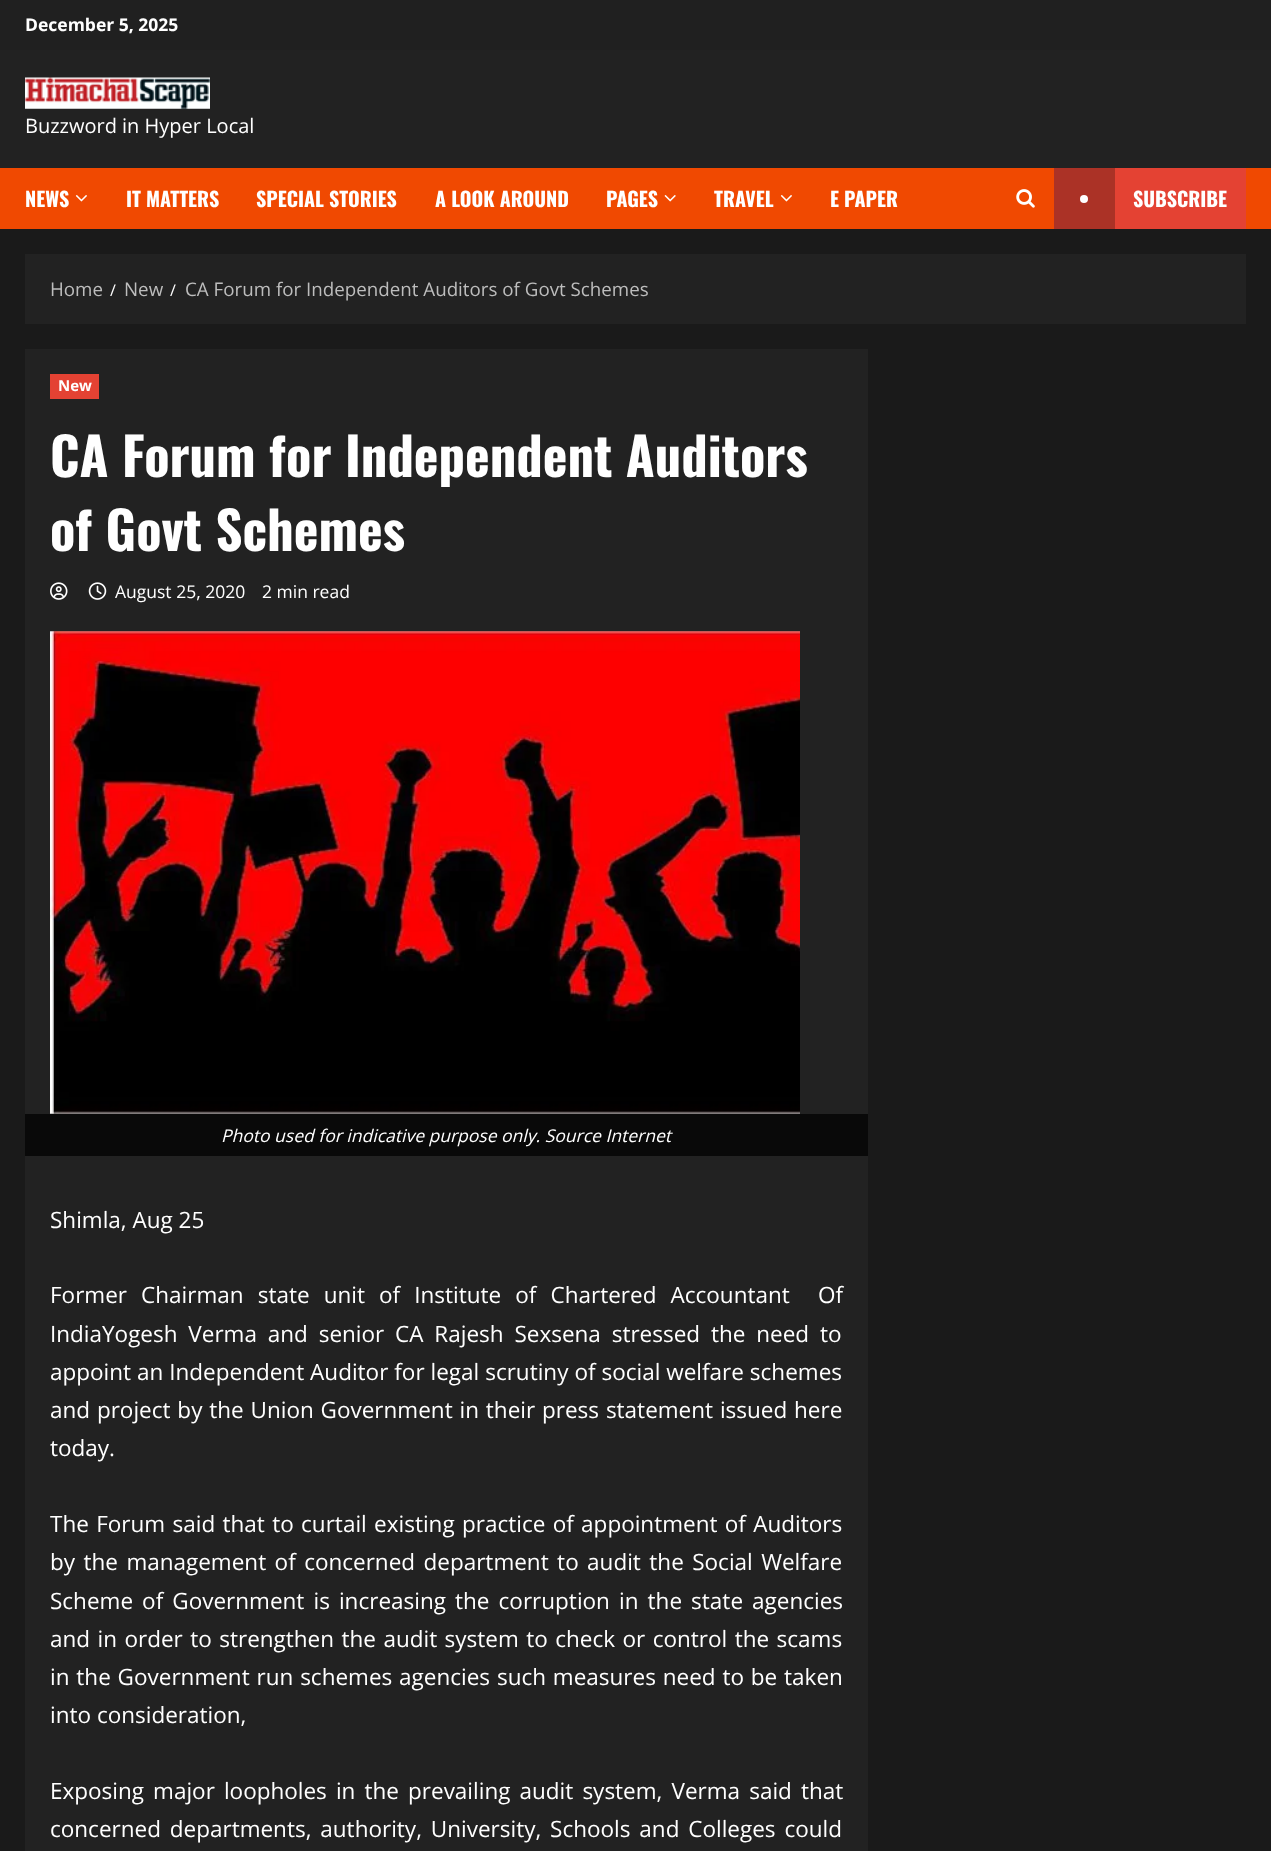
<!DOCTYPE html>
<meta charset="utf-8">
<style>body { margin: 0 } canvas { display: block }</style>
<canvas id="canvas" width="1271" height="1851"></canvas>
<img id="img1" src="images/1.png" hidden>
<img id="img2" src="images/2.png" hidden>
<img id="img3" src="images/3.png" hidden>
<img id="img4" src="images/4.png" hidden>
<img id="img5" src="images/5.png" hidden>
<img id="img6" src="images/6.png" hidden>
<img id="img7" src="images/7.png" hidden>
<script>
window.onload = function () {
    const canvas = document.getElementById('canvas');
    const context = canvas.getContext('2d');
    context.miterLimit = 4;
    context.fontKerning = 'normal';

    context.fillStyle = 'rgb(26, 26, 26)';
    context.fillRect(0, 0, 1271, 1851);
    context.fillStyle = 'rgb(32, 32, 32)';
    context.fillRect(0, 0, 1271, 50);
    context.fillStyle = 'rgb(34, 34, 34)';
    context.fillRect(0, 50, 1271, 118);
    context.drawImage(document.getElementById('img1'), 25, 77, 185, 32);
    context.fillStyle = 'rgb(240, 73, 1)';
    context.fillRect(0, 168, 1271, 61);
    context.drawImage(document.getElementById('img2'), 75, 195, 12, 7);
    context.drawImage(document.getElementById('img3'), 664, 195, 12, 7);
    context.drawImage(document.getElementById('img2'), 780, 195, 12, 7);
    context.drawImage(document.getElementById('img4'), 1016, 189, 19, 19);
    context.fillStyle = 'rgb(228, 66, 51)';
    context.fillRect(1115, 168, 131, 61);
    context.fillStyle = 'rgb(171, 50, 38)';
    context.fillRect(1054, 168, 61, 61);
    context.fillStyle = 'rgb(255, 255, 255)';
    context.beginPath();
    context.arc(1084, 199, 4, 0, 2 * Math.PI);
    context.fill();
    context.fillStyle = 'rgb(34, 34, 34)';
    context.fillRect(25, 254, 1221, 70);
    context.fillRect(25, 349, 843, 1502);
    context.fillStyle = 'rgb(228, 66, 51)';
    context.fillRect(50, 374, 49, 25);
    context.drawImage(document.getElementById('img5'), 50, 582, 18, 18);
    context.drawImage(document.getElementById('img6'), 88, 582, 19, 18);
    context.drawImage(document.getElementById('img7'), 50, 631, 750, 483);
    context.fillStyle = 'rgb(9, 9, 9)';
    context.fillRect(25, 1114, 843, 42);
    context.font = 'bold 17.5px Open Sans';
    context.fillStyle = 'rgb(255, 255, 255)';
    context.fillText('December 5, 2025', 25, 31);
    context.font = '20px Open Sans';
    context.fillText('Buzzword in Hyper Local', 25, 133);
    context.font = 'bold 20px Oswald';
    context.fillText('NEWS', 25, 207);
    context.fillText('IT MATTERS', 126, 207);
    context.fillText('SPECIAL STORIES', 256, 207);
    context.fillText('A LOOK AROUND', 435, 207);
    context.fillText('PAGES', 606, 207);
    context.fillText('TRAVEL', 714, 207);
    context.fillText('E PAPER', 830, 207);
    context.fillText('SUBSCRIBE', 1133, 207);
    context.font = '18.75px Open Sans';
    context.fillStyle = 'rgb(189, 189, 189)';
    context.fillText('Home', 50, 296);
    context.font = '16px Open Sans';
    context.fillStyle = 'rgb(255, 255, 255)';
    context.fillText('/', 110, 296);
    context.font = '18.75px Open Sans';
    context.fillStyle = 'rgb(189, 189, 189)';
    context.fillText('New', 124, 296);
    context.font = '16px Open Sans';
    context.fillStyle = 'rgb(255, 255, 255)';
    context.fillText('/', 170, 296);
    context.font = '18.75px Open Sans';
    context.fillStyle = 'rgb(189, 189, 189)';
    context.fillText('CA Forum for Independent Auditors of Govt Schemes', 185, 296);
    context.font = 'bold 15px Open Sans';
    context.fillStyle = 'rgb(255, 255, 255)';
    context.fillText('New', 58, 391);
    context.font = 'bold 52.5px Oswald';
    context.fillText('CA Forum for Independent Auditors', 50, 477);
    context.fillText('of Govt Schemes', 50, 551);
    context.font = '17.5px Open Sans';
    context.fillText('August 25, 2020', 115, 598);
    context.fillText('2 min read', 262, 598);
    context.font = 'italic 17.5px Open Sans';
    context.fillText('Photo used for indicative purpose only. Source Internet', 221, 1142);
    context.font = '22.5px Open Sans';
    context.fillText('Shimla, Aug 25', 50, 1228);
    context.wordSpacing = '8.25px';
    context.fillText('Former Chairman state unit of Institute of Chartered Accountant  Of', 50, 1303);
    context.wordSpacing = '5px';
    context.fillText('IndiaYogesh Verma and senior CA Rajesh Sexsena stressed the need to', 50, 1342);
    context.wordSpacing = '0.1px';
    context.fillText('appoint an Independent Auditor for legal scrutiny of social welfare schemes', 50, 1380);
    context.wordSpacing = '1px';
    context.fillText('and project by the Union Government in their press statement issued here', 50, 1418);
    context.wordSpacing = '0px';
    context.fillText('today.', 50, 1456);
    context.wordSpacing = '1.5px';
    context.fillText('The Forum said that to curtail existing practice of appointment of Auditors', 50, 1532);
    context.wordSpacing = '2.6px';
    context.fillText('by the management of concerned department to audit the Social Welfare', 50, 1570);
    context.wordSpacing = '3.25px';
    context.fillText('Scheme of Government is increasing the corruption in the state agencies', 50, 1609);
    context.wordSpacing = '1.6px';
    context.fillText('and in order to strengthen the audit system to check or control the scams', 50, 1647);
    context.wordSpacing = '1px';
    context.fillText('in the Government run schemes agencies such measures need to be taken', 50, 1685);
    context.wordSpacing = '0px';
    context.fillText('into consideration,', 50, 1723);
    context.wordSpacing = '3.25px';
    context.fillText('Exposing major loopholes in the prevailing audit system, Verma said that', 50, 1799);
    context.wordSpacing = '3px';
    context.fillText('concerned departments, authority, University, Schools and Colleges could', 50, 1837);
};
</script>
